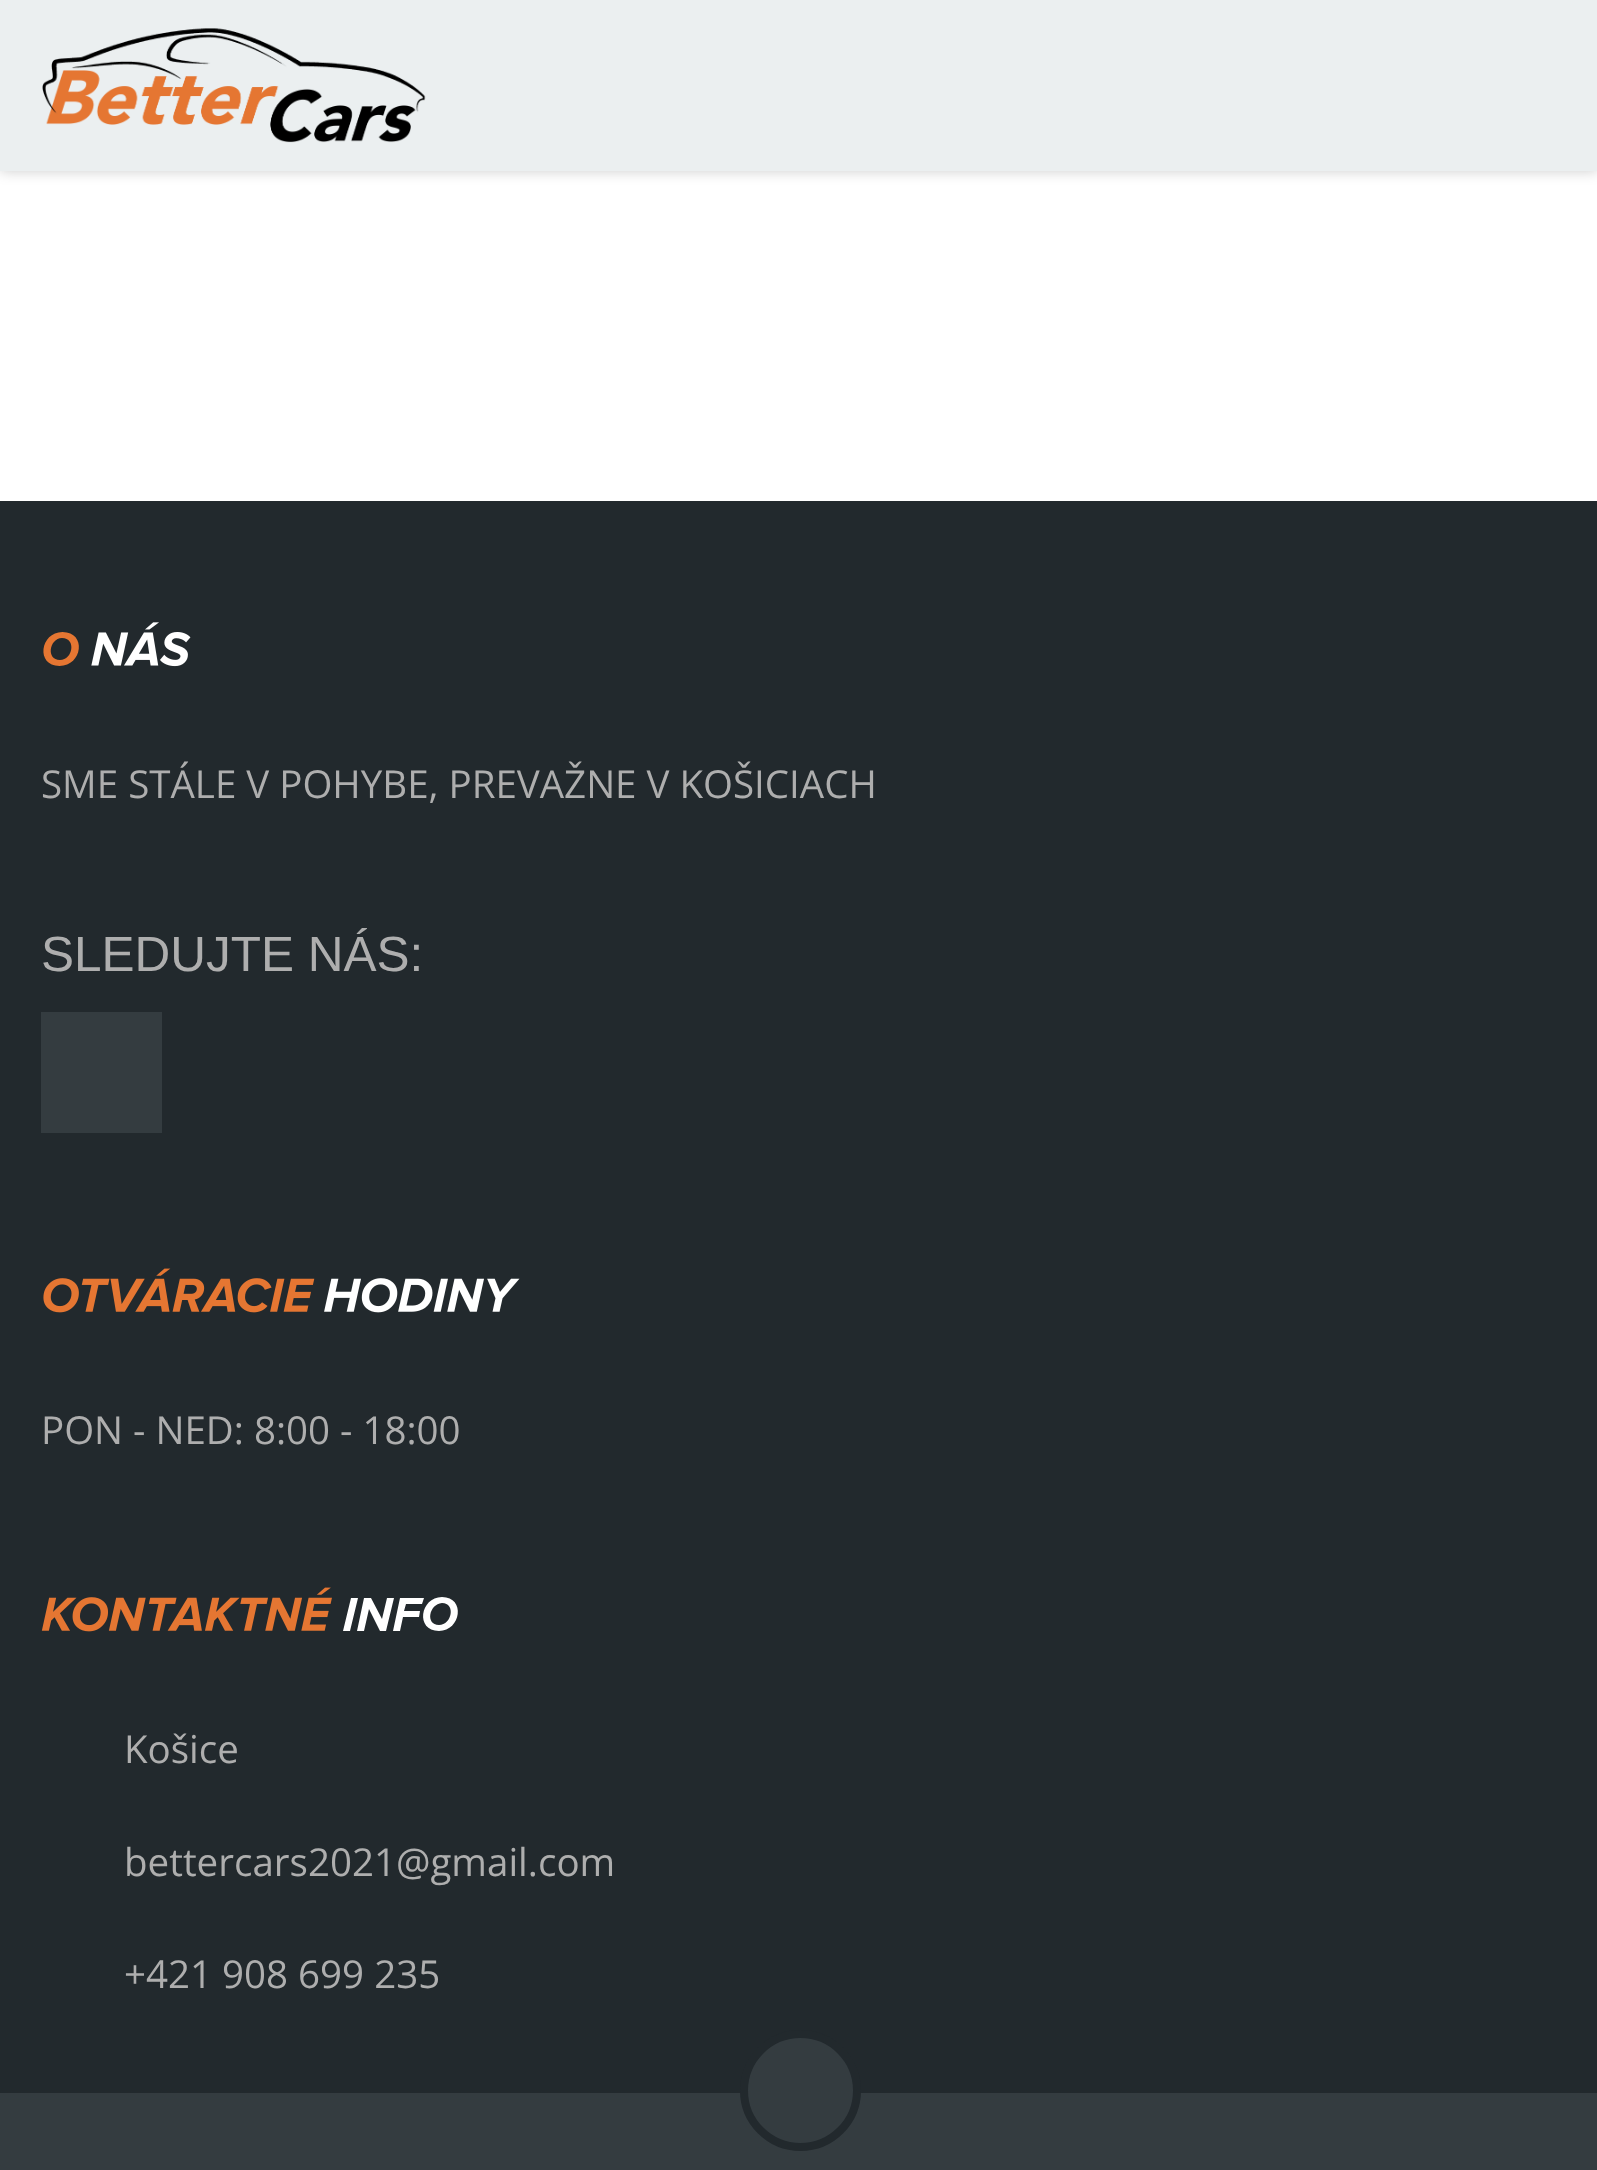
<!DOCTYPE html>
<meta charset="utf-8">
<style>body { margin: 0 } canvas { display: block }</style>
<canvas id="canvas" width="1597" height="2170"></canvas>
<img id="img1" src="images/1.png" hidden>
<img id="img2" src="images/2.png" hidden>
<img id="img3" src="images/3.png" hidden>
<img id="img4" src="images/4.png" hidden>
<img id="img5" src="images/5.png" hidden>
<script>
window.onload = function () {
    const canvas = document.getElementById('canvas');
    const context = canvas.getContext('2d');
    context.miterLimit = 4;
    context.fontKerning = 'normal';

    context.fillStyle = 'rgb(255, 255, 255)';
    context.fillRect(0, 0, 1597, 2170);
    context.fillStyle = 'rgba(0, 0, 0, 0.2)';
    context.filter = 'blur(7px)';
    context.beginPath();
    context.rect(0, 0, 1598, 171);
    context.fill();
    context.filter = 'none';
    context.fillStyle = 'rgb(235, 239, 240)';
    context.fillRect(0, 0, 1597, 171);
    context.drawImage(document.getElementById('img1'), 42, 28, 384, 115);
    context.fillStyle = 'rgb(34, 41, 45)';
    context.fillRect(0, 501, 1597, 1592);
    context.fillStyle = 'rgb(229, 118, 50)';
    context.beginPath();
    context.moveTo(59.5, 666);
    context.bezierCurveTo(35.5, 666, 40, 632, 62.5, 632);
    context.bezierCurveTo(87, 632, 82.5, 666, 59.5, 666);
    context.closePath();
    context.moveTo(60, 660);
    context.bezierCurveTo(73, 660, 76.5, 638, 62, 638);
    context.bezierCurveTo(49, 638.5, 46, 660, 60, 660);
    context.closePath();
    context.fill();
    context.drawImage(document.getElementById('img2'), 91, 622, 100, 45);
    context.fillStyle = 'rgb(52, 60, 64)';
    context.fillRect(41, 1012, 121, 121);
    context.drawImage(document.getElementById('img3'), 43, 1268, 272, 45);
    context.drawImage(document.getElementById('img4'), 324, 1278, 196, 35);
    context.drawImage(document.getElementById('img5'), 41, 1587, 291, 45);
    context.fillStyle = 'rgb(255, 255, 255)';
    context.beginPath();
    context.moveTo(350, 1631);
    context.lineTo(343, 1631);
    context.lineTo(351, 1598);
    context.lineTo(358, 1598);
    context.closePath();
    context.moveTo(386, 1631);
    context.lineTo(380, 1631);
    context.lineTo(369, 1609);
    context.lineTo(364, 1631);
    context.lineTo(357, 1631);
    context.lineTo(364, 1598);
    context.lineTo(371, 1598);
    context.lineTo(382, 1619);
    context.lineTo(387, 1598);
    context.lineTo(394, 1598);
    context.closePath();
    context.moveTo(400, 1631);
    context.lineTo(393, 1631);
    context.lineTo(400, 1598);
    context.lineTo(424, 1598);
    context.lineTo(422, 1604);
    context.lineTo(406, 1604);
    context.lineTo(404, 1611);
    context.lineTo(420, 1611);
    context.lineTo(419, 1617);
    context.lineTo(403, 1617);
    context.closePath();
    context.moveTo(439, 1631);
    context.bezierCurveTo(415, 1631, 420, 1597, 442, 1597);
    context.bezierCurveTo(466, 1597, 461, 1631, 439, 1631);
    context.closePath();
    context.moveTo(439, 1625);
    context.bezierCurveTo(452, 1625, 456, 1603, 442, 1603);
    context.bezierCurveTo(429, 1604, 425, 1625, 439, 1625);
    context.closePath();
    context.fill();
    context.fillStyle = 'rgb(52, 60, 64)';
    context.fillRect(0, 2093, 1597, 77);
    context.beginPath();
    context.arc(800.5, 2090.5, 56.5, 0, 2 * Math.PI);
    context.fill();
    context.strokeStyle = 'rgb(34, 41, 45)';
    context.lineWidth = 8;
    context.stroke();
    context.font = '38.5px Open Sans';
    context.fillStyle = 'rgb(174, 174, 174)';
    context.fillText('SME STÁLE V POHYBE, PREVAŽNE V KOŠICIACH', 41, 798);
    context.font = '49.5px Liberation Sans';
    context.fillText('SLEDUJTE NÁS:', 41, 971);
    context.font = '38.5px Open Sans';
    context.fillText('PON - NED: 8:00 - 18:00', 41, 1444);
    context.fillText('Košice', 124, 1763);
    context.fillText('bettercars2021@gmail.com', 124, 1876);
    context.fillText('+421 908 699 235', 124, 1988);
};
</script>
